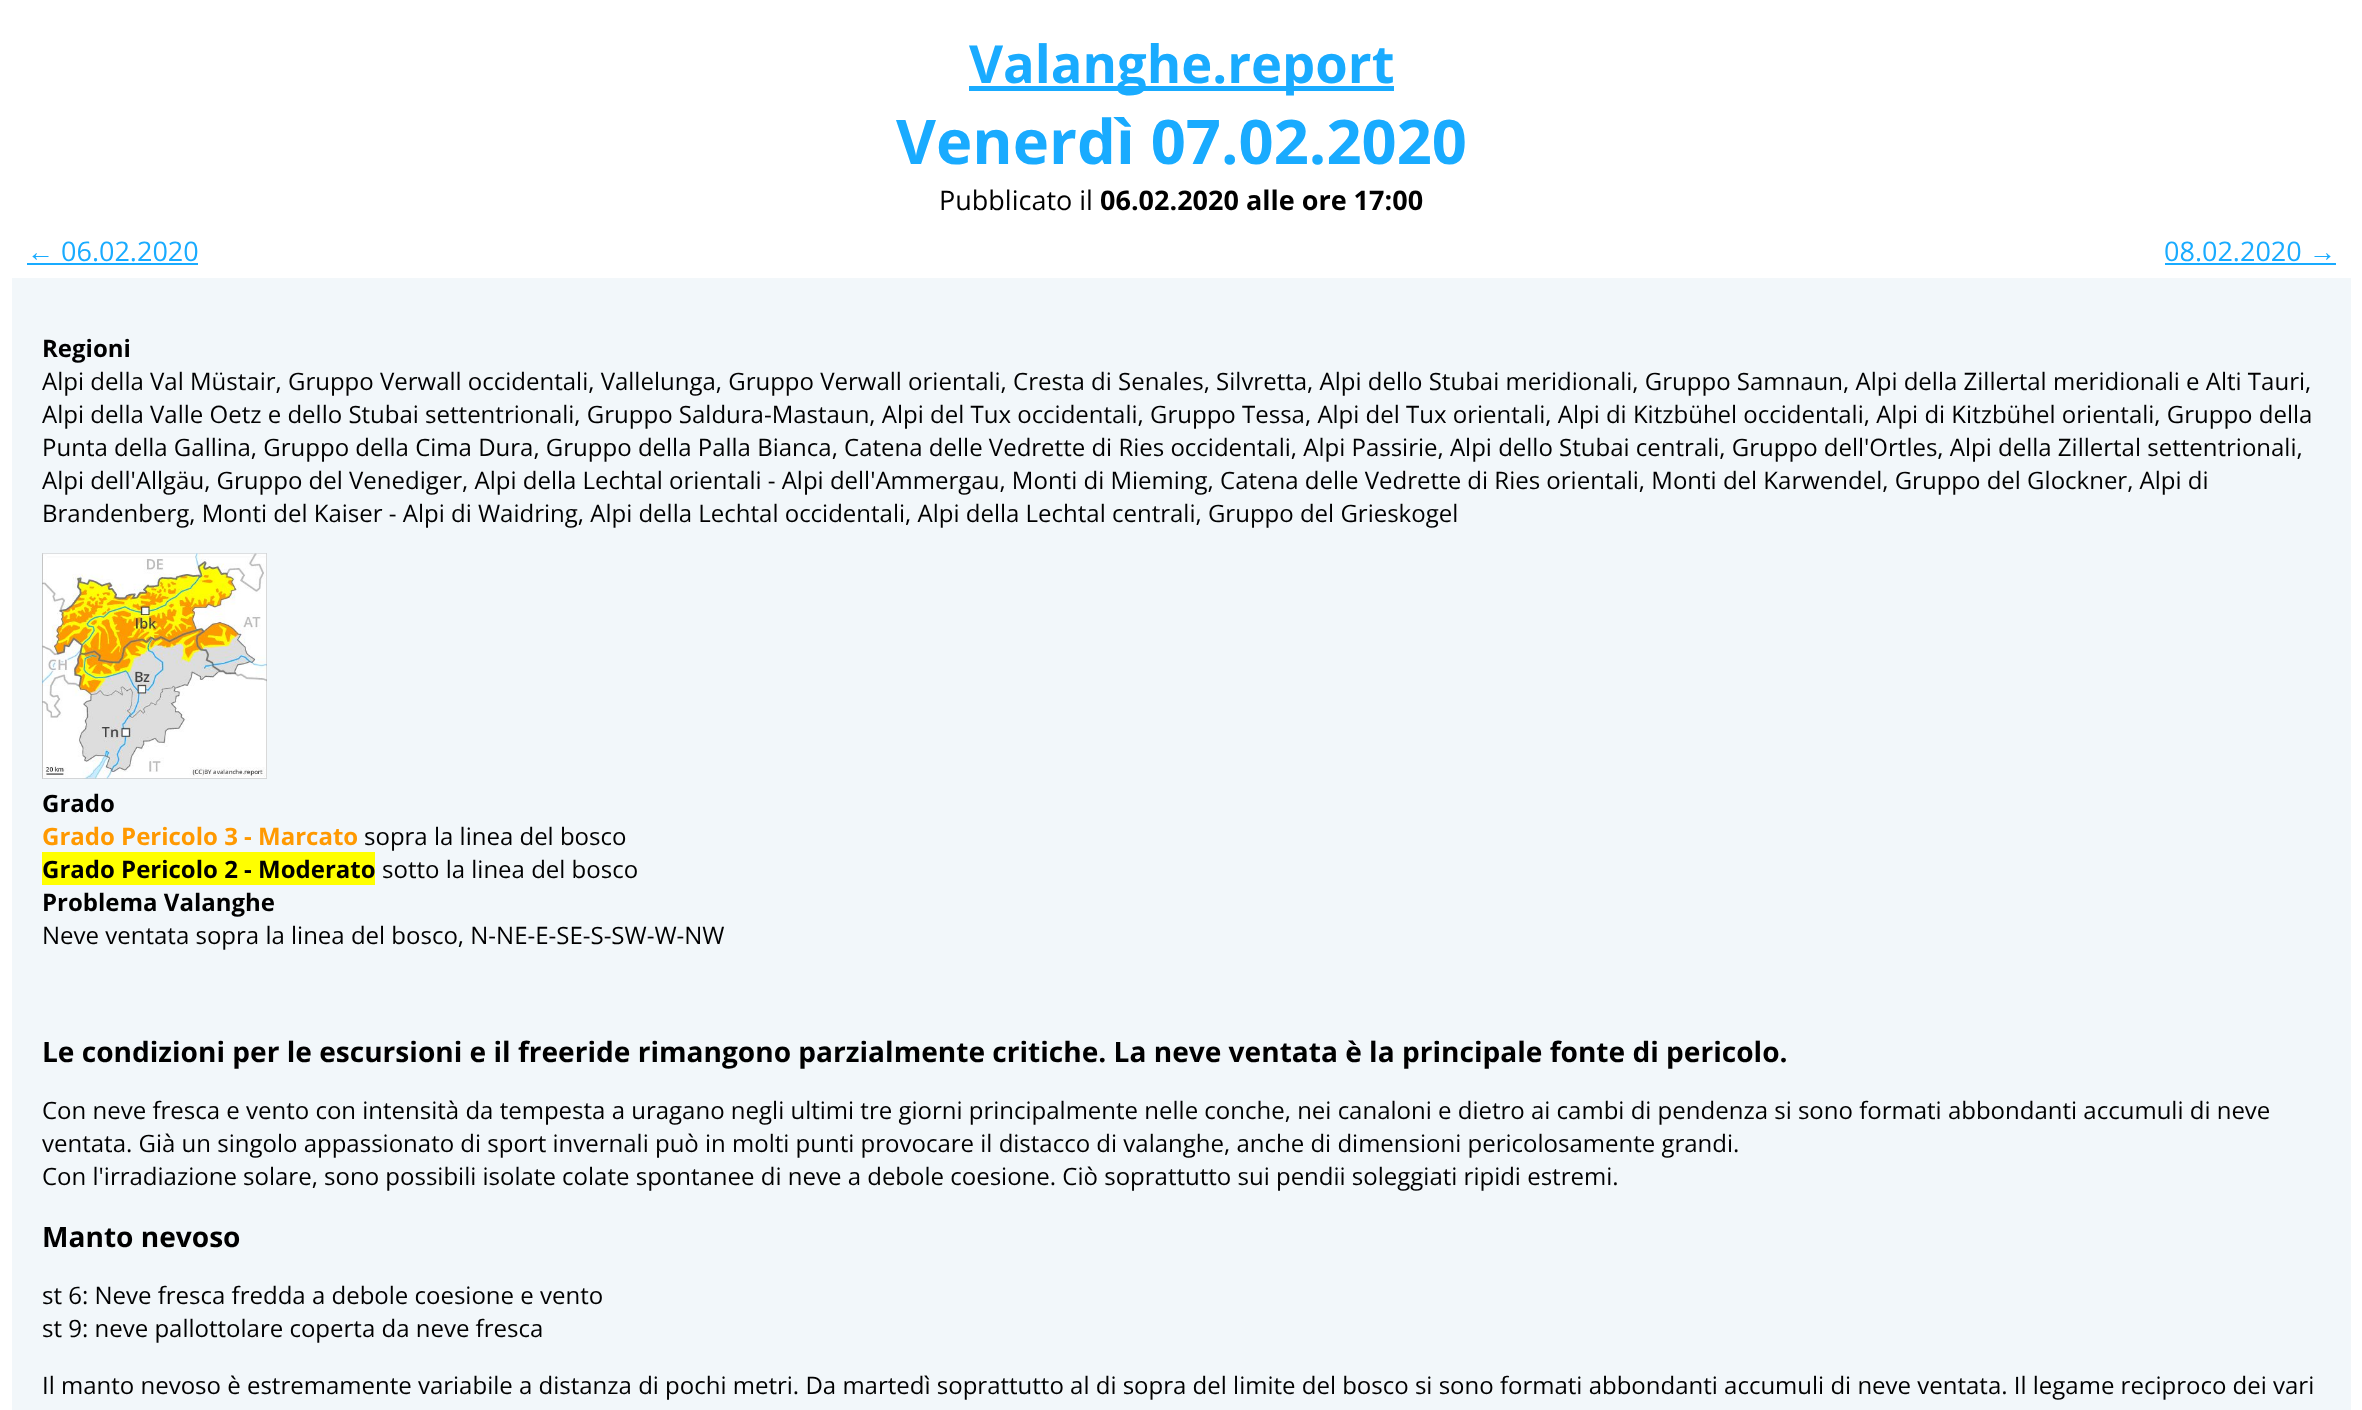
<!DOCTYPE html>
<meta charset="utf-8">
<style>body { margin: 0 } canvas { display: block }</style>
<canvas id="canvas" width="2362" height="1410"></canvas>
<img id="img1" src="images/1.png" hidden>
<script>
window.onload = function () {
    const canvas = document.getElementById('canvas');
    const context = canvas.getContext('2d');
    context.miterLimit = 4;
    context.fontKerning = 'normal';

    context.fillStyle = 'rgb(255, 255, 255)';
    context.fillRect(0, 0, 2362, 1410);
    context.fillStyle = 'rgb(25, 171, 255)';
    context.fillRect(969, 86, 425, 5);
    context.fillRect(27, 263, 171, 2);
    context.fillRect(2165, 263, 171, 2);
    context.fillStyle = 'rgb(242, 247, 250)';
    context.fillRect(12, 278, 2339, 1132);
    context.drawImage(document.getElementById('img1'), 42, 553, 225, 226);
    context.fillStyle = 'rgb(255, 255, 0)';
    context.fillRect(42, 852, 333, 33);
    context.font = 'bold 52.5px Open Sans';
    context.fillStyle = 'rgb(25, 171, 255)';
    context.fillText('Valanghe.report', 969, 83);
    context.font = 'bold 61.5px Open Sans';
    context.fillText('Venerdì 07.02.2020', 896, 164);
    context.font = '27px Open Sans';
    context.fillStyle = 'rgb(0, 0, 0)';
    context.fillText('Pubblicato il', 939, 210);
    context.font = 'bold 27px Open Sans';
    context.fillText('06.02.2020 alle ore 17:00', 1100, 210);
    context.font = '27px Liberation Sans';
    context.fillStyle = 'rgb(25, 171, 255)';
    context.fillText('←', 27, 261);
    context.font = '27px Open Sans';
    context.fillText('06.02.2020', 61, 261);
    context.fillText('08.02.2020', 2164, 261);
    context.font = '27px Liberation Sans';
    context.fillText('→', 2309, 261);
    context.font = 'bold 24px Open Sans';
    context.fillStyle = 'rgb(0, 0, 0)';
    context.fillText('Regioni', 42, 357);
    context.font = '24px Open Sans';
    context.fillText('Alpi della Val Müstair, Gruppo Verwall occidentali, Vallelunga, Gruppo Verwall orientali, Cresta di Senales, Silvretta, Alpi dello Stubai meridionali, Gruppo Samnaun, Alpi della Zillertal meridionali e Alti Tauri,', 42, 390);
    context.fillText('Alpi della Valle Oetz e dello Stubai settentrionali, Gruppo Saldura-Mastaun, Alpi del Tux occidentali, Gruppo Tessa, Alpi del Tux orientali, Alpi di Kitzbühel occidentali, Alpi di Kitzbühel orientali, Gruppo della', 42, 423);
    context.fillText('Punta della Gallina, Gruppo della Cima Dura, Gruppo della Palla Bianca, Catena delle Vedrette di Ries occidentali, Alpi Passirie, Alpi dello Stubai centrali, Gruppo dell\'Ortles, Alpi della Zillertal settentrionali,', 42, 456);
    context.fillText('Alpi dell\'Allgäu, Gruppo del Venediger, Alpi della Lechtal orientali - Alpi dell\'Ammergau, Monti di Mieming, Catena delle Vedrette di Ries orientali, Monti del Karwendel, Gruppo del Glockner, Alpi di', 42, 489);
    context.fillText('Brandenberg, Monti del Kaiser - Alpi di Waidring, Alpi della Lechtal occidentali, Alpi della Lechtal centrali, Gruppo del Grieskogel', 42, 522);
    context.font = 'bold 24px Open Sans';
    context.fillText('Grado', 42, 812);
    context.fillStyle = 'rgb(255, 153, 0)';
    context.fillText('Grado Pericolo 3 - Marcato', 42, 845);
    context.font = '24px Open Sans';
    context.fillStyle = 'rgb(0, 0, 0)';
    context.fillText('sopra la linea del bosco', 364, 845);
    context.font = 'bold 24px Open Sans';
    context.fillText('Grado Pericolo 2 - Moderato', 42, 878);
    context.font = '24px Open Sans';
    context.fillText('sotto la linea del bosco', 382, 878);
    context.font = 'bold 24px Open Sans';
    context.fillText('Problema Valanghe', 42, 911);
    context.font = '24px Open Sans';
    context.fillText('Neve ventata sopra la linea del bosco, N-NE-E-SE-S-SW-W-NW', 42, 944);
    context.font = 'bold 28.08px Open Sans';
    context.fillText('Le condizioni per le escursioni e il freeride rimangono parzialmente critiche. La neve ventata è la principale fonte di pericolo.', 42, 1062);
    context.font = '24px Open Sans';
    context.fillText('Con neve fresca e vento con intensità da tempesta a uragano negli ultimi tre giorni principalmente nelle conche, nei canaloni e dietro ai cambi di pendenza si sono formati abbondanti accumuli di neve', 42, 1119);
    context.fillText('ventata. Già un singolo appassionato di sport invernali può in molti punti provocare il distacco di valanghe, anche di dimensioni pericolosamente grandi.', 42, 1152);
    context.fillText('Con l\'irradiazione solare, sono possibili isolate colate spontanee di neve a debole coesione. Ciò soprattutto sui pendii soleggiati ripidi estremi.', 42, 1185);
    context.font = 'bold 28.08px Open Sans';
    context.fillText('Manto nevoso', 42, 1247);
    context.font = '24px Open Sans';
    context.fillText('st 6: Neve fresca fredda a debole coesione e vento', 42, 1304);
    context.fillText('st 9: neve pallottolare coperta da neve fresca', 42, 1337);
    context.fillText('Il manto nevoso è estremamente variabile a distanza di pochi metri. Da martedì soprattutto al di sopra del limite del bosco si sono formati abbondanti accumuli di neve ventata. Il legame reciproco dei vari', 42, 1394);
};
</script>
